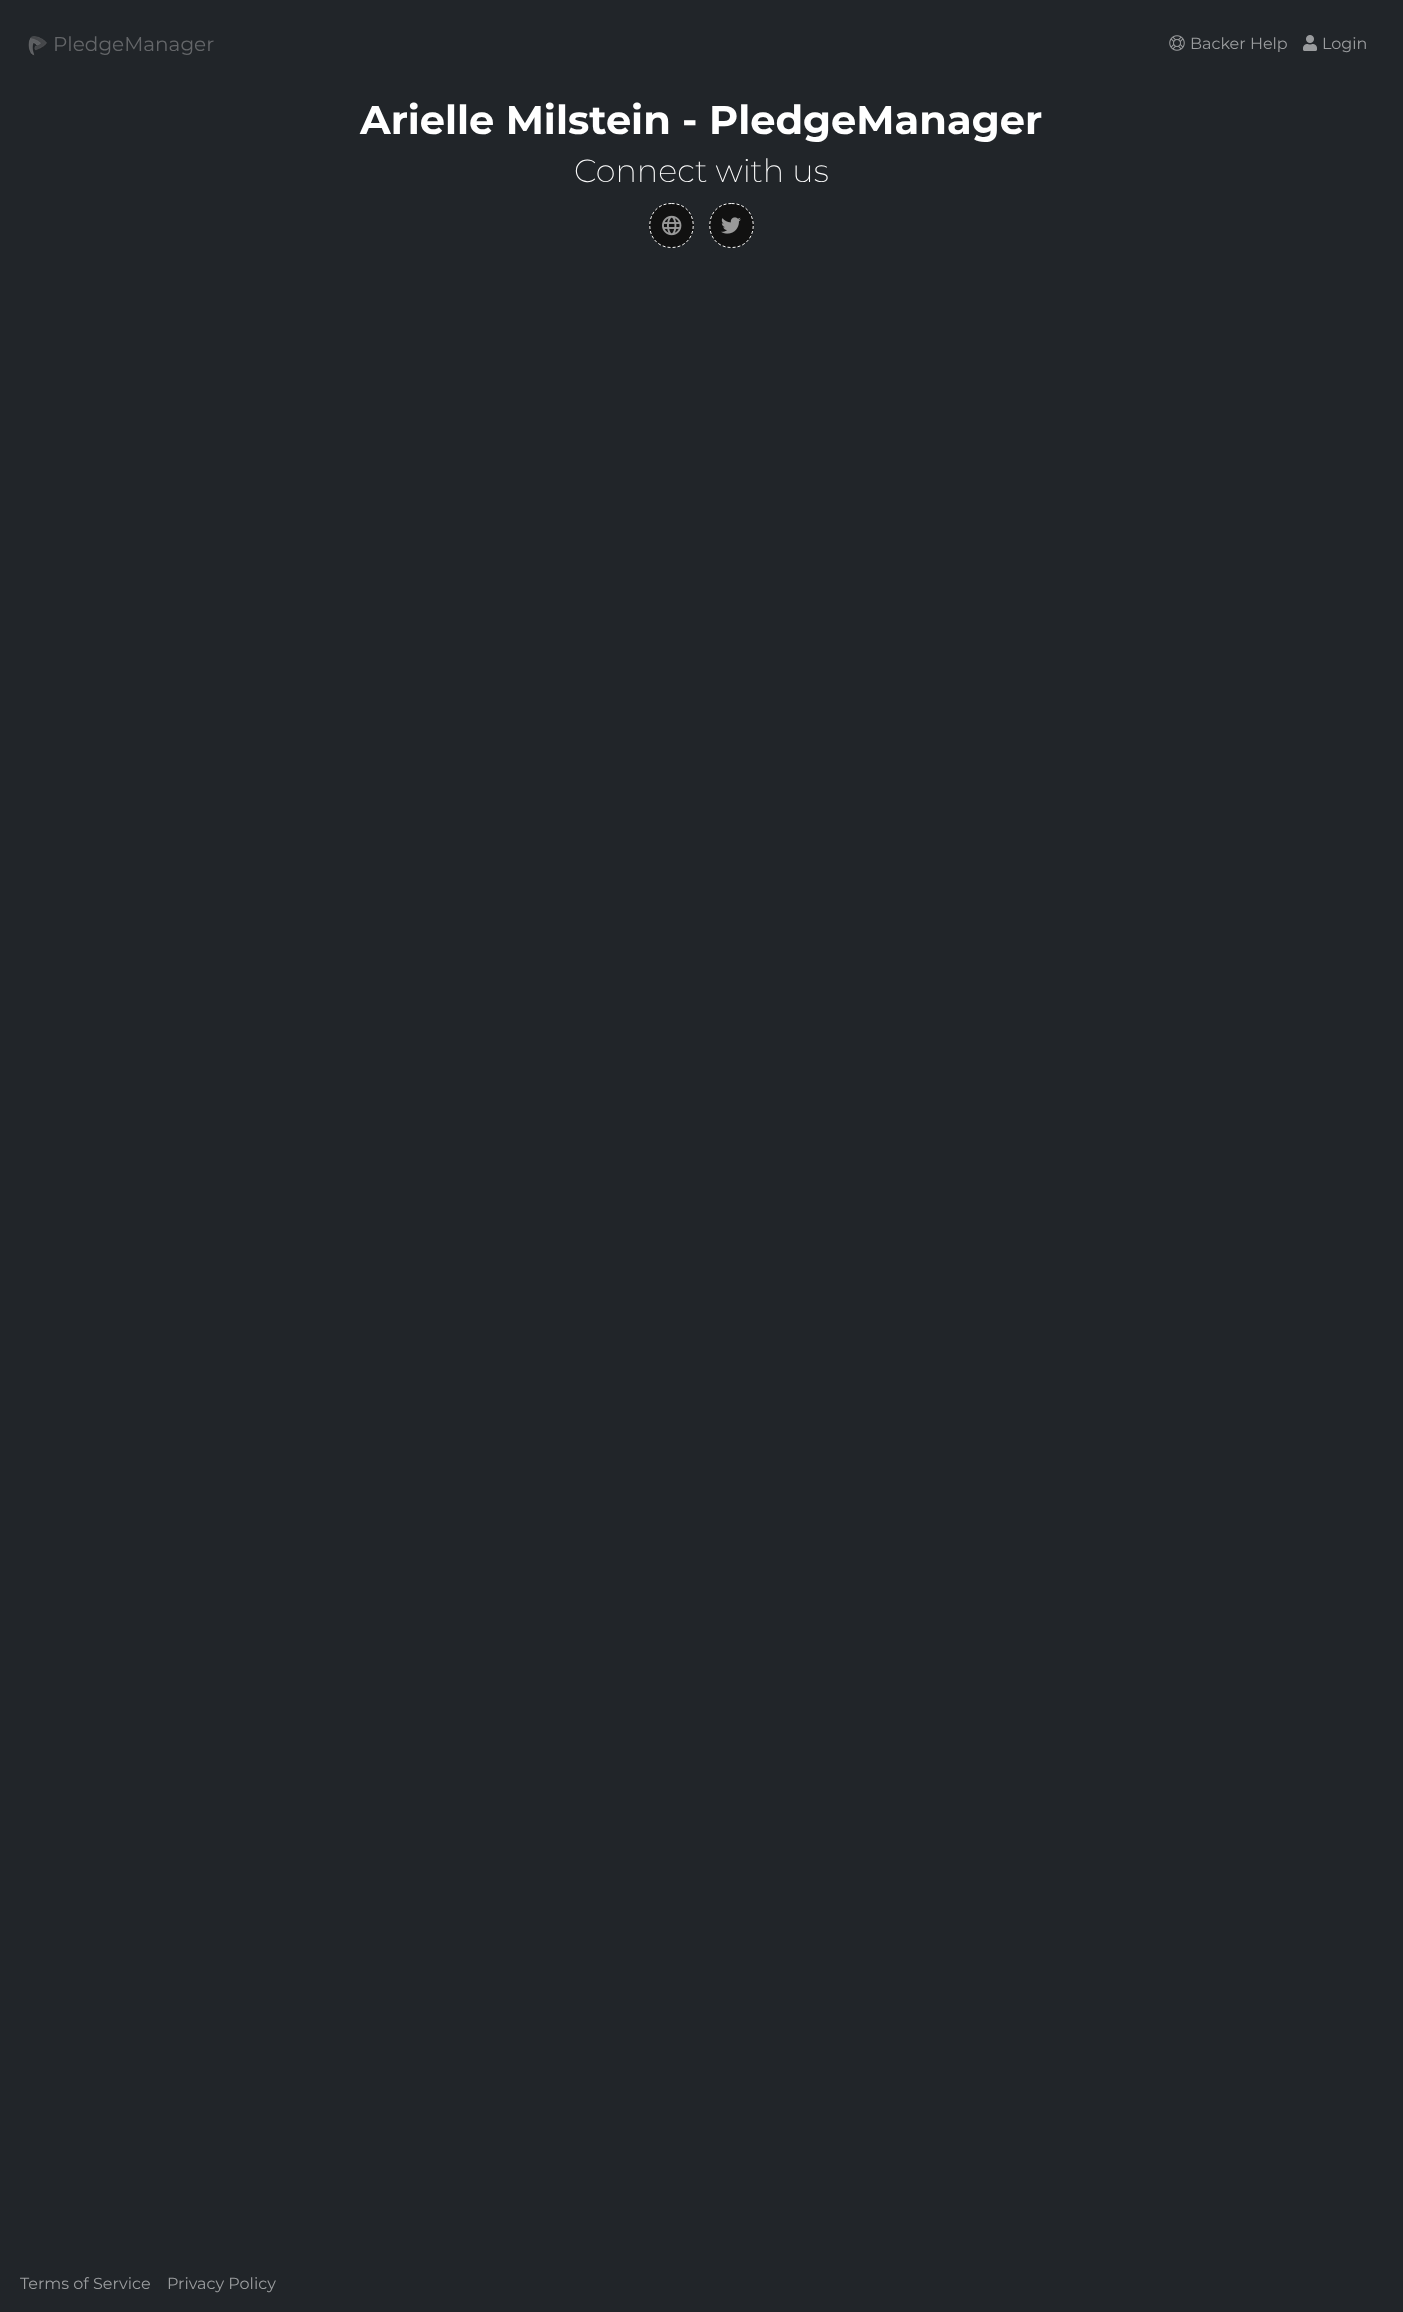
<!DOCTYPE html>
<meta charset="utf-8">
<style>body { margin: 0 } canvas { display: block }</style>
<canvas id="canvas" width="1403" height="2312"></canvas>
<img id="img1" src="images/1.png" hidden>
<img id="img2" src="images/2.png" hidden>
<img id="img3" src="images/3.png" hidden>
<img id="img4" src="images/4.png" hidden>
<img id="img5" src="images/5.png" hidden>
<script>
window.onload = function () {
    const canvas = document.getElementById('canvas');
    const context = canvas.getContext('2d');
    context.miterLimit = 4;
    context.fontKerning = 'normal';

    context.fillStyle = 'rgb(33, 37, 41)';
    context.fillRect(0, 0, 1403, 2312);
    context.drawImage(document.getElementById('img1'), 28, 36, 19, 20);
    context.drawImage(document.getElementById('img2'), 1169, 35, 16, 16);
    context.drawImage(document.getElementById('img3'), 1303, 35, 14, 16);
    context.fillStyle = 'rgb(17, 17, 17)';
    context.beginPath();
    context.arc(671.5, 225.5, 22.5, 0, 2 * Math.PI);
    context.fill();
    context.beginPath();
    context.moveTo(671.5, 203.5);
    context.bezierCurveTo(700.5, 203.5, 700.5, 247.5, 671.5, 247.5);
    context.bezierCurveTo(642.5, 247.5, 642.5, 203.5, 671.5, 203.5);
    context.closePath();
    context.strokeStyle = 'rgb(248, 248, 248)';
    context.setLineDash([3, 2]);
    context.stroke();
    context.drawImage(document.getElementById('img4'), 662, 215, 20, 21);
    context.beginPath();
    context.arc(731.5, 225.5, 22.5, 0, 2 * Math.PI);
    context.fill();
    context.beginPath();
    context.moveTo(731.5, 203.5);
    context.bezierCurveTo(760.5, 203.5, 760.5, 247.5, 731.5, 247.5);
    context.bezierCurveTo(702.5, 247.5, 702.5, 203.5, 731.5, 203.5);
    context.closePath();
    context.stroke();
    context.drawImage(document.getElementById('img5'), 721, 217, 20, 17);
    context.font = '20px Montserrat';
    context.fillStyle = 'rgb(100, 102, 105)';
    context.fillText('PledgeManager', 53, 51);
    context.font = '16px Montserrat';
    context.fillStyle = 'rgb(155, 157, 159)';
    context.fillText('Backer Help', 1190, 49);
    context.fillText('Login', 1322, 49);
    context.font = 'bold 40px Montserrat';
    context.fillStyle = 'rgb(255, 255, 255)';
    context.fillText('Arielle Milstein - PledgeManager', 360, 134);
    context.font = '200 32px Montserrat';
    context.fillText('Connect with us', 574, 182);
    context.font = '16px Montserrat';
    context.fillStyle = 'rgb(155, 157, 159)';
    context.fillText('Terms of Service', 20, 2289);
    context.fillText('Privacy Policy', 167, 2289);
};
</script>
